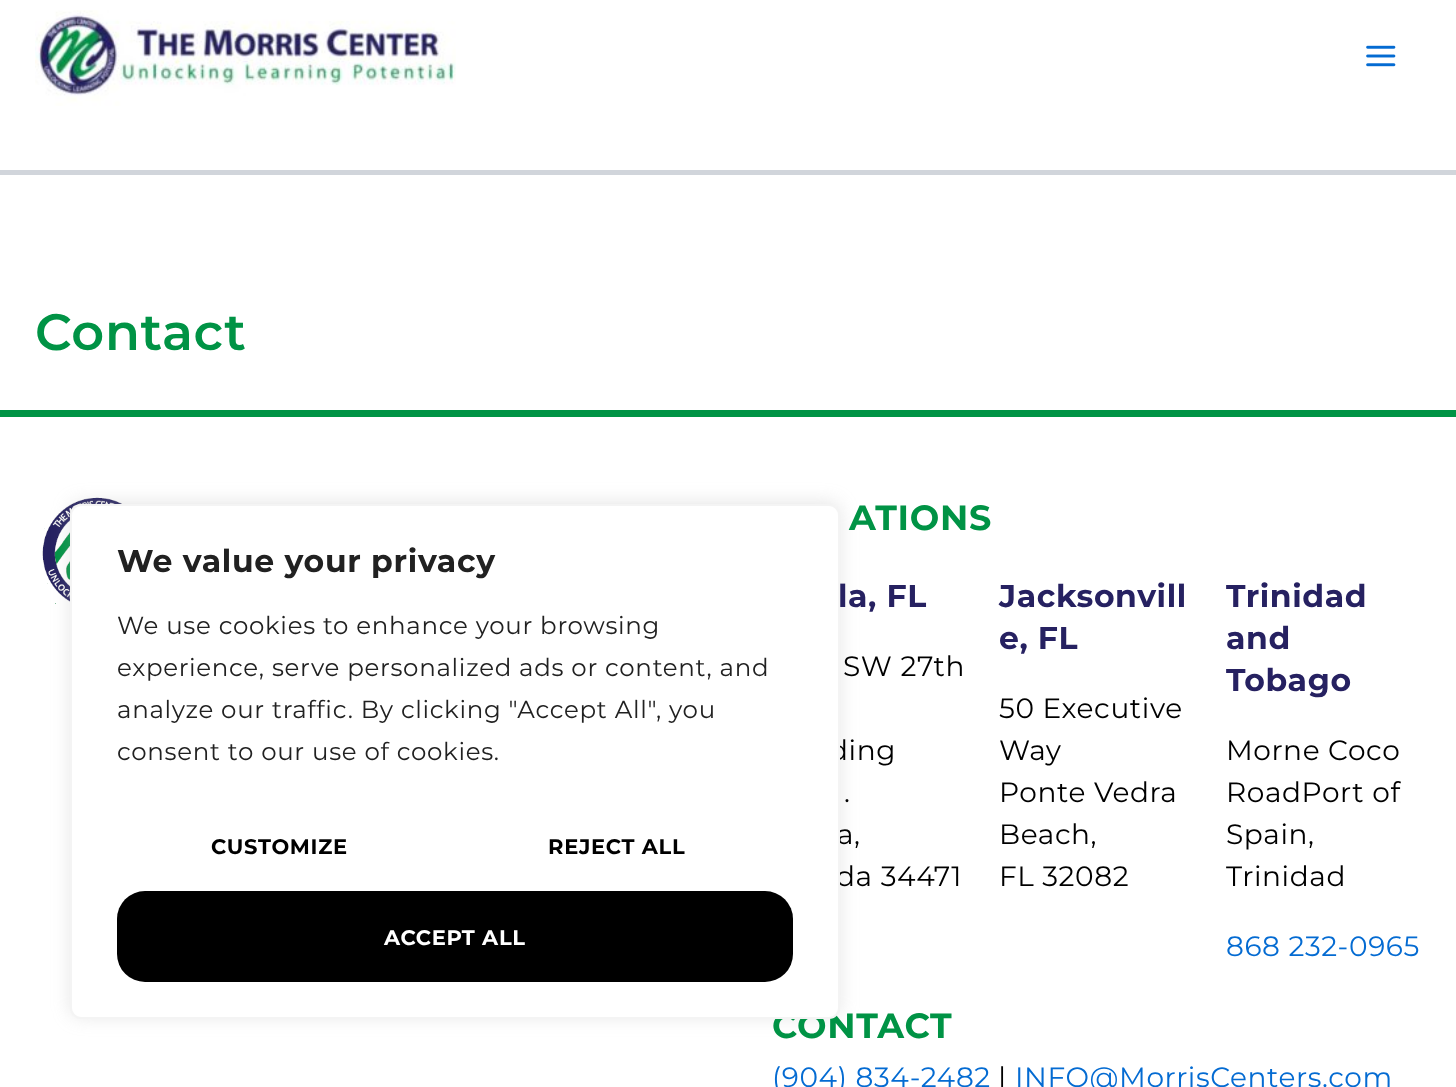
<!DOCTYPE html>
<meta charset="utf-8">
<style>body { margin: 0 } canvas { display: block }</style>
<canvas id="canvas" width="1456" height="1087"></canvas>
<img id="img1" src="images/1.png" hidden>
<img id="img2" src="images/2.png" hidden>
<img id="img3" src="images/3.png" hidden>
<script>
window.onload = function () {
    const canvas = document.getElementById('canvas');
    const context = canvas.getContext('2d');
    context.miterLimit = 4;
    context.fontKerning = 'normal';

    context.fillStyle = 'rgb(255, 255, 255)';
    context.fillRect(0, 0, 1456, 1087);
    context.fillStyle = 'rgb(209, 213, 219)';
    context.fillRect(0, 170, 1456, 5);
    context.drawImage(document.getElementById('img1'), 35, 10, 421, 96);
    context.drawImage(document.getElementById('img2'), 1366, 45, 30, 22);
    context.fillStyle = 'rgb(0, 147, 69)';
    context.fillRect(0, 410, 1456, 7);
    context.drawImage(document.getElementById('img3'), 42, 497, 594, 113);
    context.fillStyle = 'rgba(172, 171, 171, 0.3)';
    context.filter = 'blur(9px)';
    context.beginPath();
    context.roundRect(70, 502, 770, 515, 11);
    context.fill();
    context.filter = 'none';
    context.letterSpacing = '0.7px';
    context.font = '600 51px Montserrat';
    context.fillStyle = 'rgb(0, 147, 69)';
    context.fillText('Contact', 35, 350);
    context.font = 'bold 35px Montserrat';
    context.fillText('ATIONS', 849, 530);
    context.letterSpacing = '0.6px';
    context.font = 'bold 31.5px Montserrat';
    context.fillStyle = 'rgb(38, 33, 97)';
    context.fillText('la, FL', 838, 607);
    context.font = '28px Montserrat';
    context.fillStyle = 'rgb(0, 0, 0)';
    context.fillText('SW 27th', 843, 676);
    context.fillText('ding', 829, 760);
    context.fillText('.', 844, 802);
    context.fillText('a,', 837, 844);
    context.fillText('da 34471', 836, 886);
    context.font = 'bold 31.5px Montserrat';
    context.fillStyle = 'rgb(38, 33, 97)';
    context.fillText('Jacksonvill', 999, 607);
    context.fillText('e, FL', 999, 649);
    context.font = '28px Montserrat';
    context.fillStyle = 'rgb(0, 0, 0)';
    context.fillText('50 Executive', 999, 718);
    context.fillText('Way', 999, 760);
    context.fillText('Ponte Vedra', 999, 802);
    context.fillText('Beach,', 999, 844);
    context.fillText('FL 32082', 999, 886);
    context.font = 'bold 31.5px Montserrat';
    context.fillStyle = 'rgb(38, 33, 97)';
    context.fillText('Trinidad', 1226, 607);
    context.fillText('and', 1226, 649);
    context.fillText('Tobago', 1226, 691);
    context.font = '28px Montserrat';
    context.fillStyle = 'rgb(0, 0, 0)';
    context.fillText('Morne Coco', 1226, 760);
    context.fillText('RoadPort of', 1226, 802);
    context.fillText('Spain,', 1226, 844);
    context.fillText('Trinidad', 1226, 886);
    context.fillStyle = 'rgb(4, 107, 210)';
    context.fillText('868 232-0965', 1226, 956);
    context.letterSpacing = '0.7px';
    context.font = 'bold 35px Montserrat';
    context.fillStyle = 'rgb(0, 147, 69)';
    context.fillText('CONTACT', 772, 1038);
    context.letterSpacing = '0.6px';
    context.font = '28px Montserrat';
    context.fillStyle = 'rgb(4, 107, 210)';
    context.fillText('(904) 834-2482', 772, 1087);
    context.fillStyle = 'rgb(0, 0, 0)';
    context.fillText('|', 998, 1087);
    context.fillStyle = 'rgb(4, 107, 210)';
    context.fillText('INFO@MorrisCenters.com', 1015, 1087);
    context.fillStyle = 'rgb(255, 255, 255)';
    context.beginPath();
    context.roundRect(71, 505, 768, 513, 10);
    context.fill();
    context.strokeStyle = 'rgb(244, 244, 244)';
    context.lineWidth = 2;
    context.stroke();
    context.letterSpacing = '0.7px';
    context.font = 'bold 31.5px Montserrat';
    context.fillStyle = 'rgb(33, 33, 33)';
    context.fillText('We value your privacy', 117, 572);
    context.font = '24.5px Montserrat';
    context.fillText('We use cookies to enhance your browsing', 117, 634);
    context.fillText('experience, serve personalized ads or content, and', 117, 676);
    context.fillText('analyze our traffic. By clicking "Accept All", you', 117, 718);
    context.fillText('consent to our use of cookies.', 117, 760);
    context.font = 'bold 21px Montserrat';
    context.fillStyle = 'rgb(0, 0, 0)';
    context.fillText('CUSTOMIZE', 211, 854);
    context.fillText('REJECT ALL', 548, 854);
    context.beginPath();
    context.roundRect(117, 891, 676, 91, 28);
    context.fill();
    context.fillStyle = 'rgb(255, 255, 255)';
    context.fillText('ACCEPT ALL', 384, 945);
};
</script>
